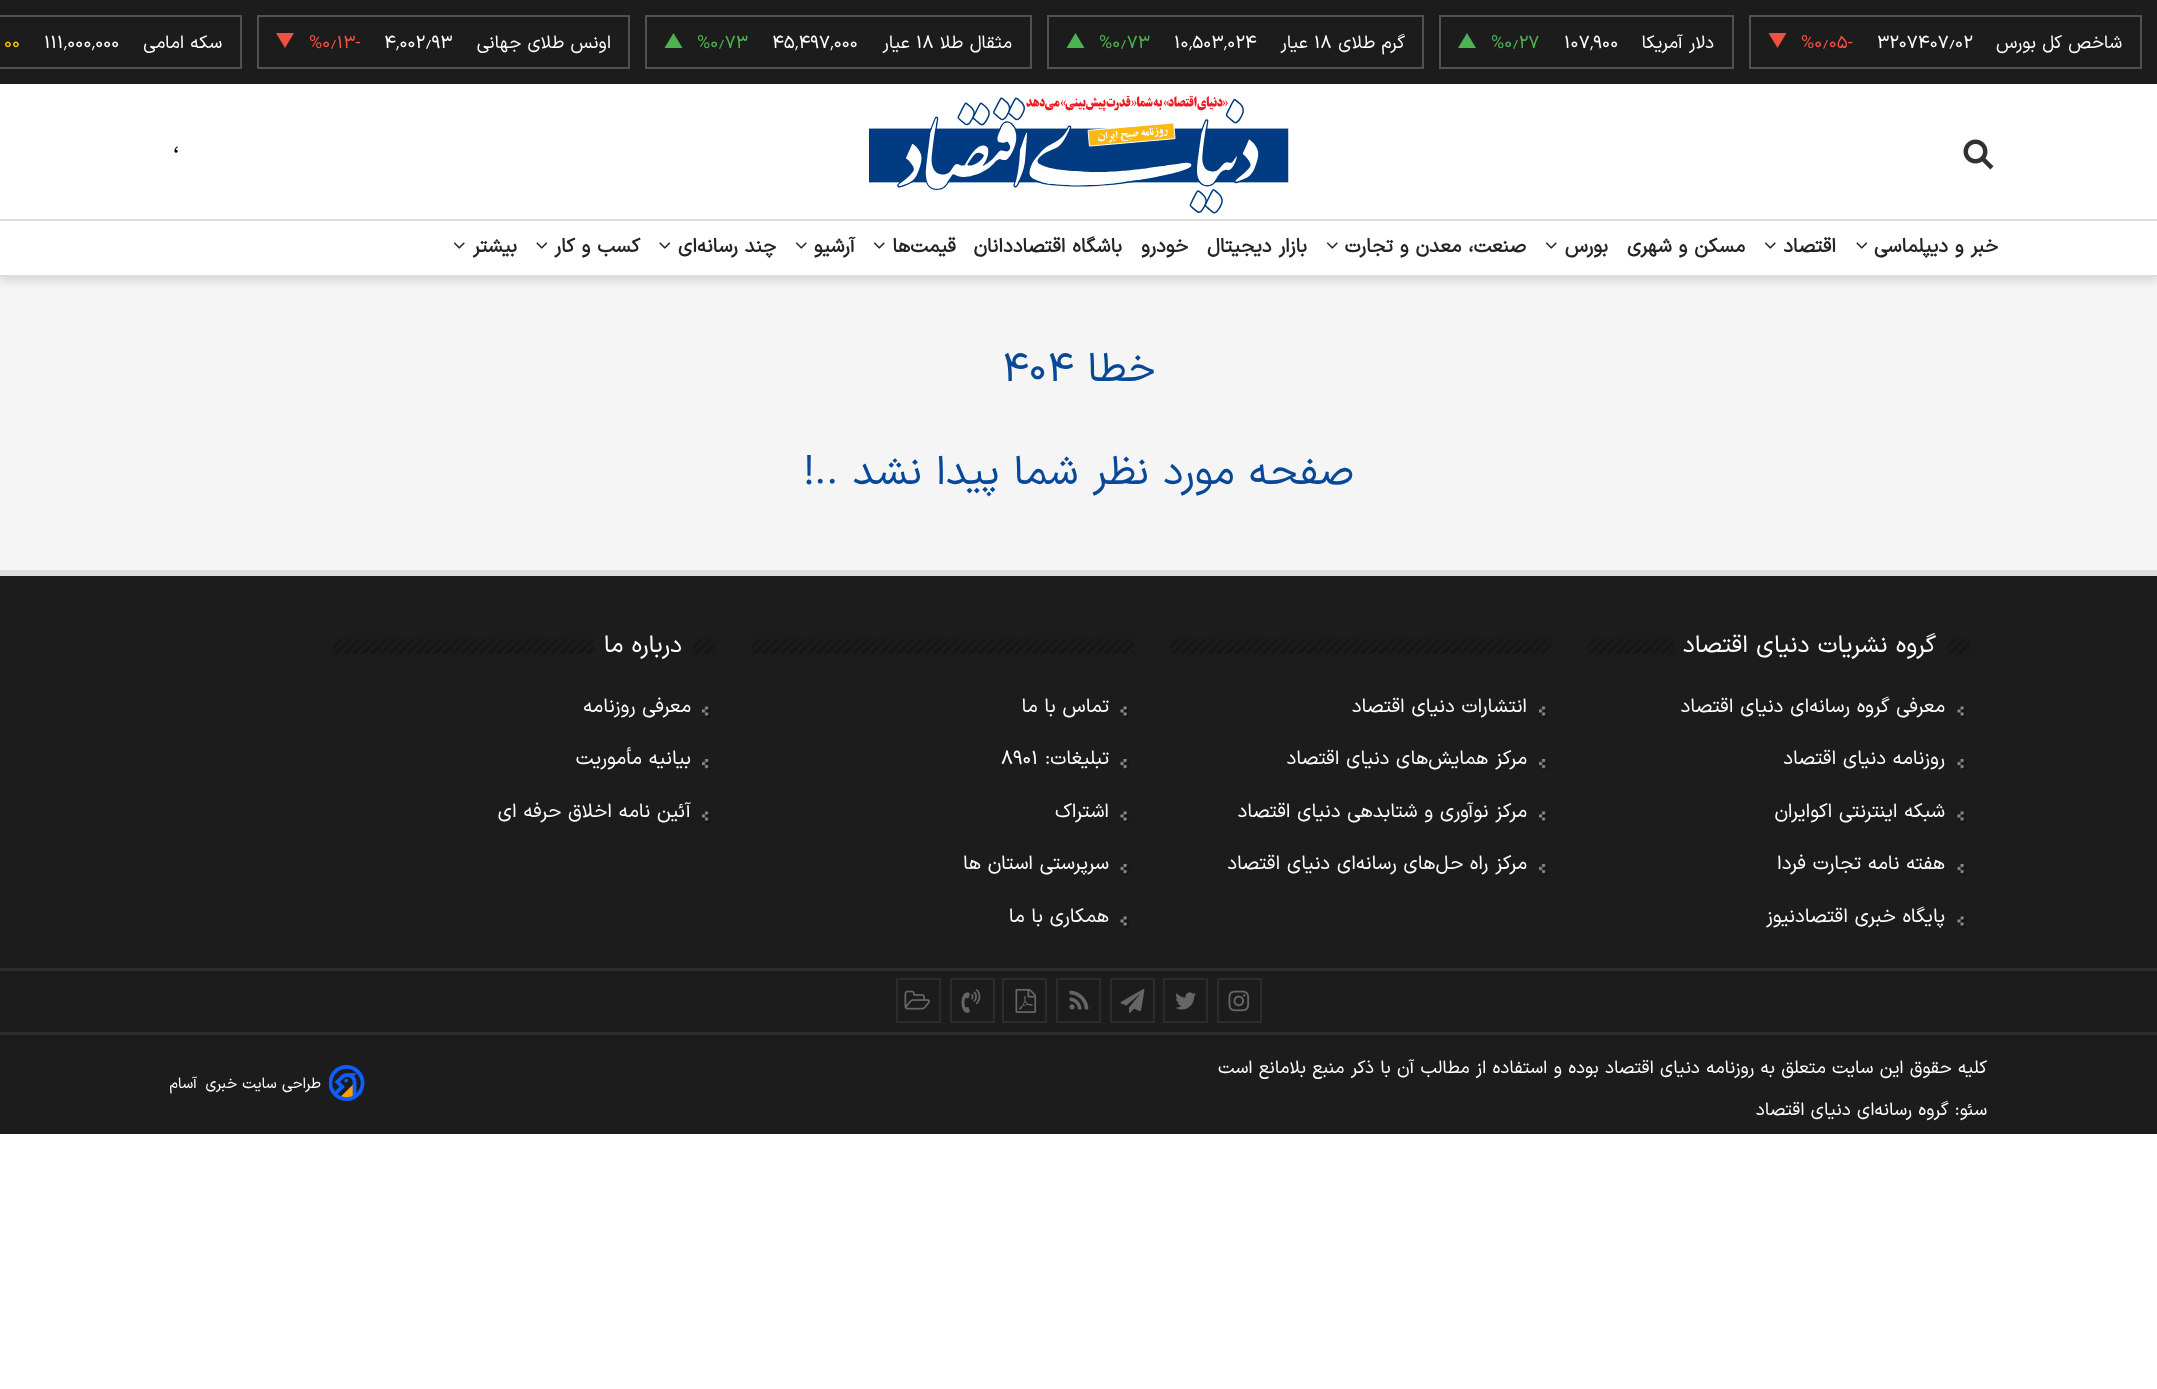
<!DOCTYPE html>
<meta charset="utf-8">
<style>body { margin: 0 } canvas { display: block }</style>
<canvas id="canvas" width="2157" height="1389"></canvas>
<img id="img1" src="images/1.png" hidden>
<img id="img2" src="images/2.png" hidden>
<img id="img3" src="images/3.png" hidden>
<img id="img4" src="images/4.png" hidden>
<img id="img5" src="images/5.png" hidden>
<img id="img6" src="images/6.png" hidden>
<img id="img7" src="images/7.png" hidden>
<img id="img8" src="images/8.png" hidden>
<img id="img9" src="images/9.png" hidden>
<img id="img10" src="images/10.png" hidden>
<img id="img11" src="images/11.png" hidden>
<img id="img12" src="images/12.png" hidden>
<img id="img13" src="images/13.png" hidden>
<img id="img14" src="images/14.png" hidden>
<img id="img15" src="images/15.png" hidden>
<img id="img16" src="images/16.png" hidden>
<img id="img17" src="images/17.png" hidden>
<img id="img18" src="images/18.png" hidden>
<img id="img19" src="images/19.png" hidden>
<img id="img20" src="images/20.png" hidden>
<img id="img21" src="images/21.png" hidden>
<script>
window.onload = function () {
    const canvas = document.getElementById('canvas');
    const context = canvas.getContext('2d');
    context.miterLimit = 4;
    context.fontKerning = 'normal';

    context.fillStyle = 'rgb(255, 255, 255)';
    context.fillRect(0, 0, 2157, 1389);
    context.fillStyle = 'rgb(245, 245, 245)';
    context.fillRect(0, 277, 2157, 293);
    context.fillStyle = 'rgba(50, 50, 50, 0.15)';
    context.filter = 'blur(4px)';
    context.beginPath();
    context.rect(0, 5, 2157, 276);
    context.fill();
    context.filter = 'none';
    context.fillStyle = 'rgb(255, 255, 255)';
    context.fillRect(0, 84, 2157, 191);
    context.fillStyle = 'rgb(28, 28, 28)';
    context.fillRect(0, 0, 2157, 84);
    context.strokeStyle = 'rgb(81, 81, 81)';
    context.lineWidth = 2;
    context.strokeRect(1750, 16, 391, 52);
    context.fillStyle = 'rgb(240, 81, 67)';
    context.beginPath();
    context.moveTo(1777.5, 48);
    context.lineTo(1768.5, 33);
    context.lineTo(1786.5, 33);
    context.closePath();
    context.fill('evenodd');
    context.strokeRect(1440, 16, 293, 52);
    context.fillStyle = 'rgb(77, 178, 80)';
    context.beginPath();
    context.moveTo(1467, 33);
    context.lineTo(1476, 48);
    context.lineTo(1458, 48);
    context.closePath();
    context.fill('evenodd');
    context.strokeRect(1048, 16, 375, 52);
    context.beginPath();
    context.moveTo(1075.5, 33);
    context.lineTo(1084.5, 48);
    context.lineTo(1066.5, 48);
    context.closePath();
    context.fill('evenodd');
    context.strokeRect(646, 16, 385, 52);
    context.beginPath();
    context.moveTo(673.5, 33);
    context.lineTo(682.5, 48);
    context.lineTo(664.5, 48);
    context.closePath();
    context.fill('evenodd');
    context.strokeRect(258, 16, 371, 52);
    context.fillStyle = 'rgb(240, 81, 67)';
    context.beginPath();
    context.moveTo(285, 48);
    context.lineTo(276, 33);
    context.lineTo(294, 33);
    context.closePath();
    context.fill('evenodd');
    context.strokeRect(-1, 16, 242, 52);
    context.drawImage(document.getElementById('img1'), 1963, 139, 31, 31);
    context.drawImage(document.getElementById('img2'), 869, 95, 420, 119);
    context.fillStyle = 'rgb(221, 221, 221)';
    context.fillRect(0, 219, 2157, 2);
    context.fillRect(0, 275, 2157, 2);
    context.drawImage(document.getElementById('img3'), 1856, 242, 12, 7);
    context.drawImage(document.getElementById('img4'), 1764, 242, 12, 7);
    context.drawImage(document.getElementById('img4'), 1545, 242, 12, 7);
    context.drawImage(document.getElementById('img4'), 1326, 242, 12, 7);
    context.drawImage(document.getElementById('img4'), 873, 242, 12, 7);
    context.drawImage(document.getElementById('img4'), 795, 242, 12, 7);
    context.drawImage(document.getElementById('img3'), 659, 242, 12, 7);
    context.drawImage(document.getElementById('img3'), 536, 242, 12, 7);
    context.drawImage(document.getElementById('img4'), 453, 242, 12, 7);
    context.fillStyle = 'rgb(28, 28, 28)';
    context.fillRect(0, 576, 2157, 558);
    context.fillStyle = 'rgb(221, 221, 221)';
    context.fillRect(0, 570, 2157, 6);
    context.drawImage(document.getElementById('img5'), 1587, 639, 382, 15);
    context.fillStyle = 'rgb(28, 28, 28)';
    context.fillRect(1673, 639, 274, 15);
    context.drawImage(document.getElementById('img6'), 1957, 706, 9, 12);
    context.drawImage(document.getElementById('img7'), 1957, 759, 9, 11);
    context.drawImage(document.getElementById('img6'), 1957, 811, 9, 12);
    context.drawImage(document.getElementById('img7'), 1957, 864, 9, 11);
    context.drawImage(document.getElementById('img6'), 1957, 916, 9, 12);
    context.drawImage(document.getElementById('img8'), 1170, 639, 381, 15);
    context.drawImage(document.getElementById('img9'), 1539, 706, 9, 12);
    context.drawImage(document.getElementById('img10'), 1539, 759, 9, 11);
    context.drawImage(document.getElementById('img9'), 1539, 811, 9, 12);
    context.drawImage(document.getElementById('img10'), 1539, 864, 9, 11);
    context.drawImage(document.getElementById('img11'), 752, 639, 382, 15);
    context.drawImage(document.getElementById('img6'), 1120, 706, 9, 12);
    context.drawImage(document.getElementById('img7'), 1120, 759, 9, 11);
    context.drawImage(document.getElementById('img6'), 1120, 811, 9, 12);
    context.drawImage(document.getElementById('img7'), 1120, 864, 9, 11);
    context.drawImage(document.getElementById('img6'), 1120, 916, 9, 12);
    context.drawImage(document.getElementById('img5'), 333, 639, 382, 15);
    context.fillRect(594, 639, 99, 15);
    context.drawImage(document.getElementById('img12'), 702, 706, 9, 12);
    context.drawImage(document.getElementById('img13'), 702, 759, 9, 11);
    context.drawImage(document.getElementById('img12'), 702, 811, 9, 12);
    context.fillStyle = 'rgb(44, 44, 44)';
    context.fillRect(0, 968, 2157, 3);
    context.fillRect(0, 1032, 2157, 3);
    context.strokeStyle = 'rgb(44, 44, 44)';
    context.strokeRect(1218, 979, 43, 43);
    context.drawImage(document.getElementById('img14'), 1228, 990, 22, 22);
    context.strokeRect(1164, 979, 43, 43);
    context.drawImage(document.getElementById('img15'), 1175, 992, 21, 18);
    context.strokeRect(1111, 979, 43, 43);
    context.drawImage(document.getElementById('img16'), 1120, 989, 25, 24);
    context.strokeRect(1057, 979, 43, 43);
    context.drawImage(document.getElementById('img17'), 1069, 990, 20, 20);
    context.strokeRect(1003, 979, 43, 43);
    context.drawImage(document.getElementById('img18'), 1015, 988, 22, 25);
    context.strokeRect(951, 979, 43, 43);
    context.drawImage(document.getElementById('img19'), 961, 989, 20, 24);
    context.strokeRect(897, 979, 43, 43);
    context.drawImage(document.getElementById('img20'), 904, 990, 26, 20);
    context.drawImage(document.getElementById('img21'), 329, 1065, 36, 36);
    context.direction = 'rtl';
    context.font = '18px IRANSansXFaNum';
    context.fillStyle = 'rgb(255, 255, 255)';
    context.fillText('شاخص کل بورس', 2122, 48);
    context.direction = 'ltr';
    context.fillText('3207407.02', 1877, 48);
    context.fillStyle = 'rgb(240, 81, 67)';
    context.fillText('%0.05-', 1801, 48);
    context.direction = 'rtl';
    context.fillStyle = 'rgb(255, 255, 255)';
    context.fillText('دلار آمریکا', 1714, 48);
    context.direction = 'ltr';
    context.fillText('107,900', 1564, 48);
    context.fillStyle = 'rgb(77, 178, 80)';
    context.fillText('%0.27', 1491, 48);
    context.direction = 'rtl';
    context.fillStyle = 'rgb(255, 255, 255)';
    context.fillText('گرم طلای', 1405, 48);
    context.direction = 'ltr';
    context.fillText('۱۸', 1314, 48);
    context.direction = 'rtl';
    context.fillText('عیار', 1308, 48);
    context.direction = 'ltr';
    context.fillText('10,503,024', 1174, 48);
    context.fillStyle = 'rgb(77, 178, 80)';
    context.fillText('%0.73', 1099, 48);
    context.direction = 'rtl';
    context.fillStyle = 'rgb(255, 255, 255)';
    context.fillText('مثقال طلا', 1012, 48);
    context.direction = 'ltr';
    context.fillText('۱۸', 916, 48);
    context.direction = 'rtl';
    context.fillText('عیار', 910, 48);
    context.direction = 'ltr';
    context.fillText('45,497,000', 772, 48);
    context.fillStyle = 'rgb(77, 178, 80)';
    context.fillText('%0.73', 697, 48);
    context.direction = 'rtl';
    context.fillStyle = 'rgb(255, 255, 255)';
    context.fillText('اونس طلای جهانی', 611, 48);
    context.direction = 'ltr';
    context.fillText('4,002.93', 384, 48);
    context.fillStyle = 'rgb(240, 81, 67)';
    context.fillText('%0.13-', 309, 48);
    context.direction = 'rtl';
    context.fillStyle = 'rgb(255, 255, 255)';
    context.fillText('سکه امامی', 222, 48);
    context.direction = 'ltr';
    context.fillText('111,000,000', 44, 48);
    context.fillStyle = 'rgb(255, 193, 7)';
    context.fillText('00', 4, 48);
    context.font = '24px IRANSansXFaNum';
    context.fillStyle = 'rgb(0, 0, 0)';
    context.fillText('،', 173, 153);
    context.direction = 'rtl';
    context.font = 'bold 19.5px IRANSansXFaNum';
    context.fillStyle = 'rgb(36, 36, 36)';
    context.fillText('خبر و دیپلماسی', 1998, 252);
    context.fillText('اقتصاد', 1836, 252);
    context.fillText('مسکن و شهری', 1745, 252);
    context.fillText('بورس', 1608, 252);
    context.fillText('صنعت، معدن و تجارت', 1526, 252);
    context.fillText('بازار دیجیتال', 1307, 252);
    context.fillText('خودرو', 1188, 252);
    context.fillText('باشگاه اقتصاددانان', 1122, 252);
    context.fillText('قیمت‌ها', 956, 252);
    context.fillText('آرشیو', 855, 252);
    context.fillText('چند رسانه‌ای', 776, 252);
    context.fillText('کسب و کار', 640, 252);
    context.fillText('بیشتر', 517, 252);
    context.font = '40.75px IRANSansXFaNum';
    context.fillStyle = 'rgb(8, 72, 153)';
    context.fillText('خطا', 1155, 381);
    context.direction = 'ltr';
    context.fillText('۴۰۴', 1002, 381);
    context.direction = 'rtl';
    context.fillText('صفحه مورد نظر شما پیدا نشد ..!', 1354, 484);
    context.font = '24px IRANSansXFaNum';
    context.fillStyle = 'rgb(255, 255, 255)';
    context.fillText('گروه نشریات دنیای اقتصاد', 1936, 652);
    context.font = '19.5px IRANSansXFaNum';
    context.fillText('معرفی گروه رسانه‌ای دنیای اقتصاد', 1945, 712);
    context.fillText('روزنامه دنیای اقتصاد', 1945, 764);
    context.fillText('شبکه اینترنتی اکوایران', 1945, 817);
    context.fillText('هفته نامه تجارت فردا', 1945, 869);
    context.fillText('پایگاه خبری اقتصادنیوز', 1945, 922);
    context.fillText('انتشارات دنیای اقتصاد', 1527, 712);
    context.fillText('مرکز همایش‌های دنیای اقتصاد', 1527, 764);
    context.fillText('مرکز نوآوری و شتابدهی دنیای اقتصاد', 1527, 817);
    context.fillText('مرکز راه حل‌های رسانه‌ای دنیای اقتصاد', 1527, 869);
    context.fillText('تماس با ما', 1109, 712);
    context.fillText('تبلیغات:', 1109, 764);
    context.direction = 'ltr';
    context.fillText('8901', 1001, 764);
    context.direction = 'rtl';
    context.fillText('اشتراک', 1109, 817);
    context.fillText('سرپرستی استان ها', 1109, 869);
    context.fillText('همکاری با ما', 1109, 922);
    context.font = '24px IRANSansXFaNum';
    context.fillText('درباره ما', 682, 652);
    context.font = '19.5px IRANSansXFaNum';
    context.fillText('معرفی روزنامه', 691, 712);
    context.fillText('بیانیه مأموریت', 691, 764);
    context.fillText('آئین نامه اخلاق حرفه ای', 691, 817);
    context.font = '18px IRANSansXFaNum';
    context.fillText('کليه حقوق اين سايت متعلق به روزنامه دنيای اقتصاد بوده و استفاده از مطالب آن با ذکر منبع بلامانع است', 1987, 1073);
    context.fillText('سئو: گروه رسانه‌ای دنیای اقتصاد', 1987, 1115);
    context.font = '15px IRANSansXFaNum';
    context.fillText('طراحی سایت خبری', 321, 1088);
    context.fillText('آسام', 197, 1088);
};
</script>
